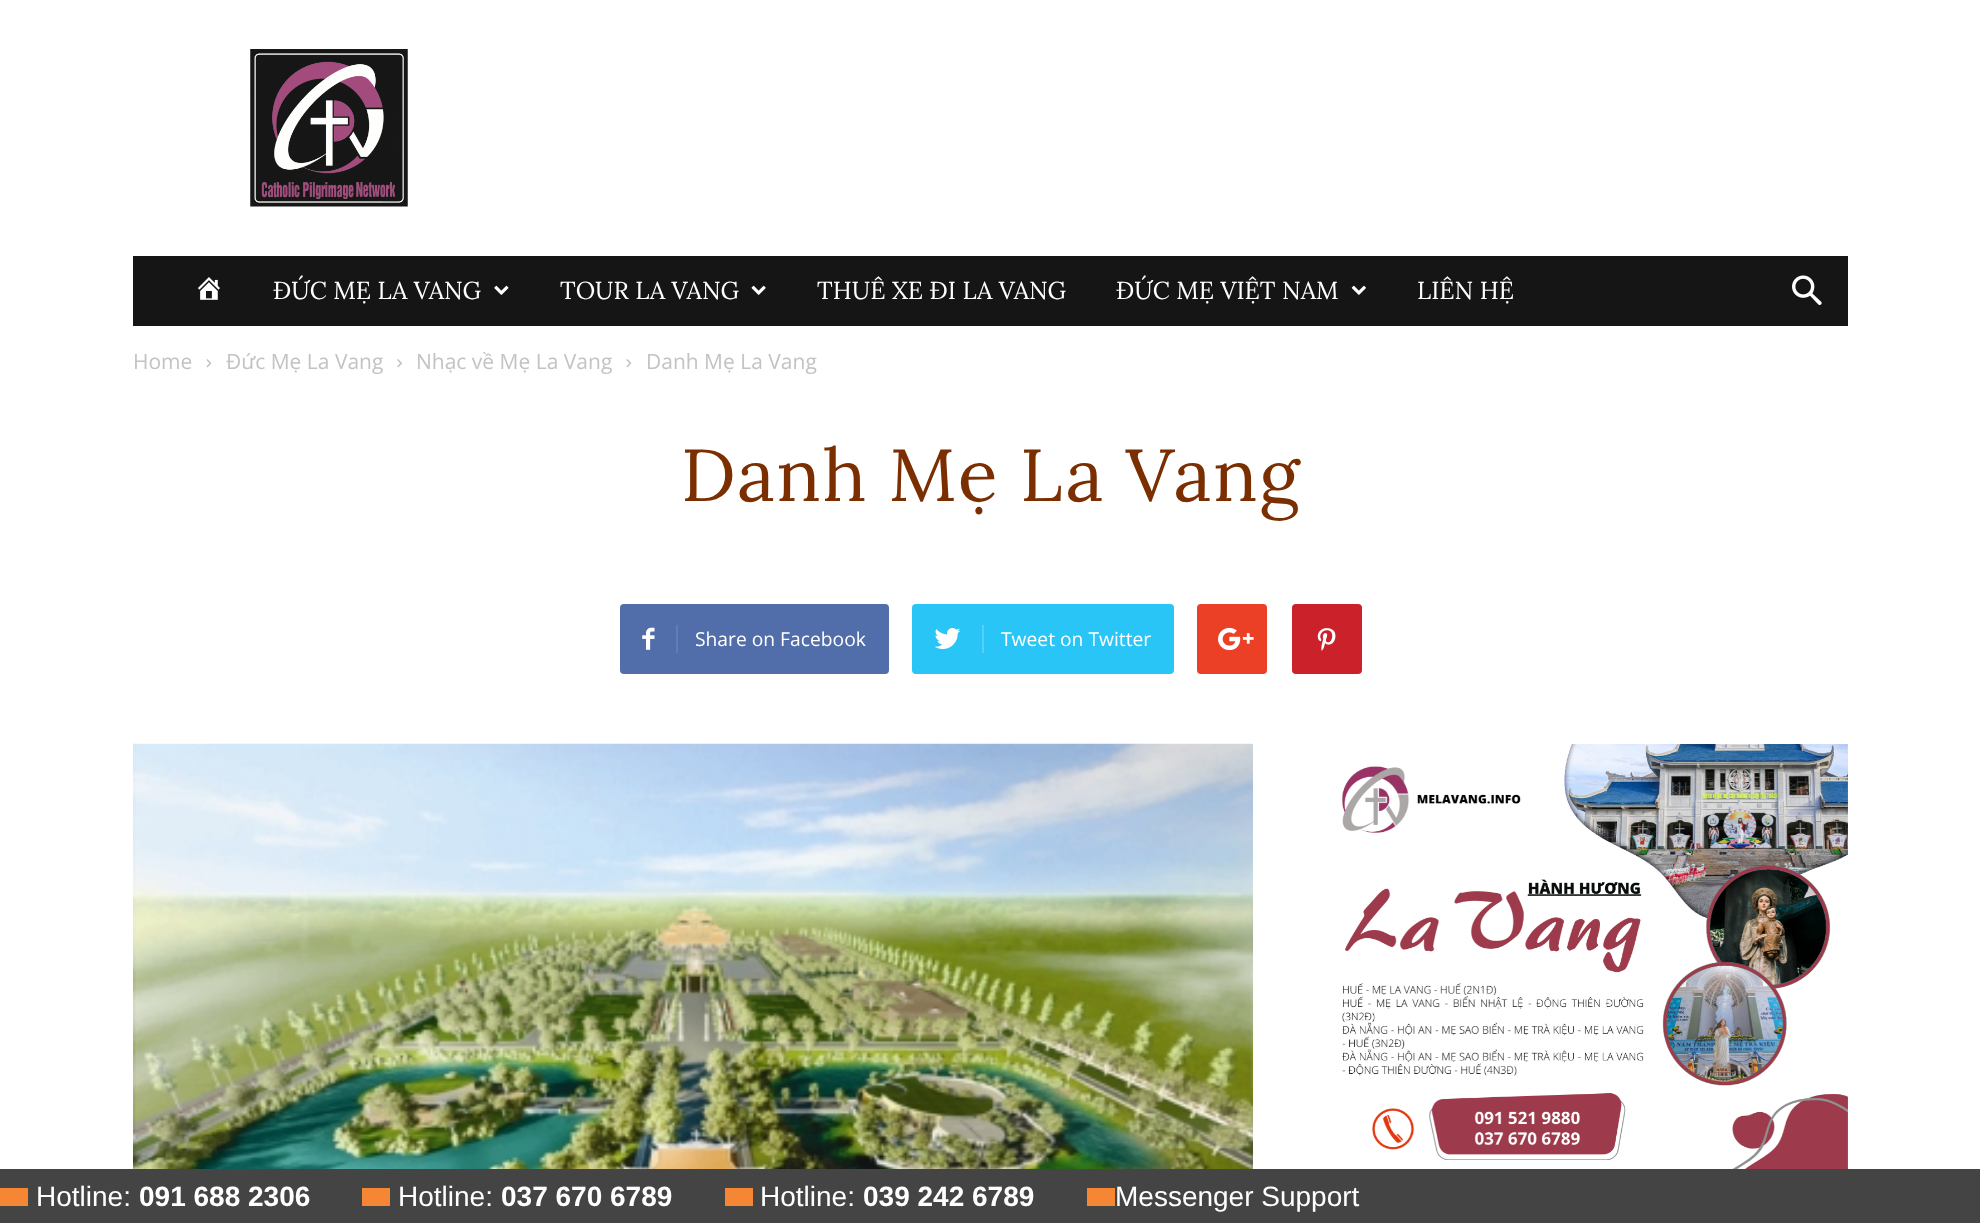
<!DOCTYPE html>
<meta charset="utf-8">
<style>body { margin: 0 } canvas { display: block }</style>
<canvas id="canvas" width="1980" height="1223"></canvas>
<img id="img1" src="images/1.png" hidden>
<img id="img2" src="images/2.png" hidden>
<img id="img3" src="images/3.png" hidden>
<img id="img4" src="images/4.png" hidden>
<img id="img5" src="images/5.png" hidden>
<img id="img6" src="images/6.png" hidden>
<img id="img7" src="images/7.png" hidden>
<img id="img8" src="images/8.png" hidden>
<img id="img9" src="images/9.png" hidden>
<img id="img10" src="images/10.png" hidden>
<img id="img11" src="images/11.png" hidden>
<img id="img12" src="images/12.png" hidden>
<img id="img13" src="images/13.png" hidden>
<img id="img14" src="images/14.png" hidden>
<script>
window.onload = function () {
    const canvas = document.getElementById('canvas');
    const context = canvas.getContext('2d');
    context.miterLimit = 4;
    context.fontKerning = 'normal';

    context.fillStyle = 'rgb(255, 255, 255)';
    context.fillRect(0, 0, 1980, 1223);
    context.drawImage(document.getElementById('img1'), 250, 49, 158, 158);
    context.fillStyle = 'rgb(21, 21, 21)';
    context.fillRect(133, 256, 1715, 70);
    context.drawImage(document.getElementById('img2'), 198, 277, 22, 23);
    context.drawImage(document.getElementById('img3'), 494, 285, 15, 10);
    context.drawImage(document.getElementById('img4'), 751, 285, 15, 10);
    context.drawImage(document.getElementById('img5'), 1351, 285, 15, 10);
    context.drawImage(document.getElementById('img6'), 1792, 275, 30, 30);
    context.drawImage(document.getElementById('img7'), 206, 359, 6, 9);
    context.drawImage(document.getElementById('img8'), 397, 359, 5, 9);
    context.drawImage(document.getElementById('img7'), 626, 359, 6, 9);
    context.fillStyle = 'rgb(81, 110, 171)';
    context.beginPath();
    context.roundRect(620, 604, 269, 70, 4);
    context.fill();
    context.drawImage(document.getElementById('img9'), 642, 627, 13, 23);
    context.fillStyle = 'rgb(98, 125, 179)';
    context.fillRect(676, 625, 2, 28);
    context.fillStyle = 'rgb(41, 197, 246)';
    context.beginPath();
    context.roundRect(912, 604, 262, 70, 4);
    context.fill();
    context.drawImage(document.getElementById('img10'), 934, 628, 27, 21);
    context.fillStyle = 'rgb(84, 209, 248)';
    context.fillRect(982, 625, 2, 28);
    context.fillStyle = 'rgb(235, 64, 38)';
    context.beginPath();
    context.roundRect(1197, 604, 70, 70, 4);
    context.fill();
    context.drawImage(document.getElementById('img11'), 1218, 627, 36, 24);
    context.fillStyle = 'rgb(202, 33, 42)';
    context.beginPath();
    context.roundRect(1292, 604, 70, 70, 4);
    context.fill();
    context.drawImage(document.getElementById('img12'), 1317, 628, 19, 23);
    context.drawImage(document.getElementById('img13'), 133, 743, 1120, 426);
    context.drawImage(document.getElementById('img14'), 1342, 744, 506, 425);
    context.fillStyle = 'rgb(68, 68, 68)';
    context.fillRect(0, 1169, 1980, 54);
    context.fillStyle = 'rgb(245, 134, 52)';
    context.fillRect(0, 1188, 28, 18);
    context.fillRect(362, 1188, 28, 18);
    context.fillRect(725, 1188, 28, 18);
    context.fillRect(1087, 1188, 28, 18);
    context.font = '24.5px Lora';
    context.fillStyle = 'rgb(255, 255, 255)';
    context.fillText('ĐỨC MẸ LA VANG', 273, 299);
    context.fillText('TOUR LA VANG', 560, 299);
    context.fillText('THUÊ XE ĐI LA VANG', 817, 299);
    context.fillText('ĐỨC MẸ VIỆT NAM', 1116, 299);
    context.fillText('LIÊN HỆ', 1417, 299);
    context.font = '21px Open Sans';
    context.fillStyle = 'rgb(195, 195, 195)';
    context.fillText('Home', 133, 369);
    context.fillText('Đức Mẹ La Vang', 226, 369);
    context.fillText('Nhạc về Mẹ La Vang', 416, 369);
    context.fillText('Danh Mẹ La Vang', 646, 369);
    context.letterSpacing = '1.5px';
    context.font = '73.5px Lora';
    context.fillStyle = 'rgb(123, 46, 0)';
    context.fillText('Danh Mẹ La Vang', 681, 501);
    context.letterSpacing = '0px';
    context.font = '19.25px Open Sans';
    context.fillStyle = 'rgb(255, 255, 255)';
    context.fillText('Share on Facebook', 695, 646);
    context.fillText('Tweet on Twitter', 1001, 646);
    context.font = '28px Liberation Sans';
    context.fillText('Hotline:', 36, 1206);
    context.font = 'bold 28px Liberation Sans';
    context.fillText('091 688 2306', 139, 1206);
    context.font = '28px Liberation Sans';
    context.fillText('Hotline:', 398, 1206);
    context.font = 'bold 28px Liberation Sans';
    context.fillText('037 670 6789', 501, 1206);
    context.font = '28px Liberation Sans';
    context.fillText('Hotline:', 760, 1206);
    context.font = 'bold 28px Liberation Sans';
    context.fillText('039 242 6789', 863, 1206);
    context.font = '28px Liberation Sans';
    context.fillText('Messenger Support', 1115, 1206);
};
</script>
